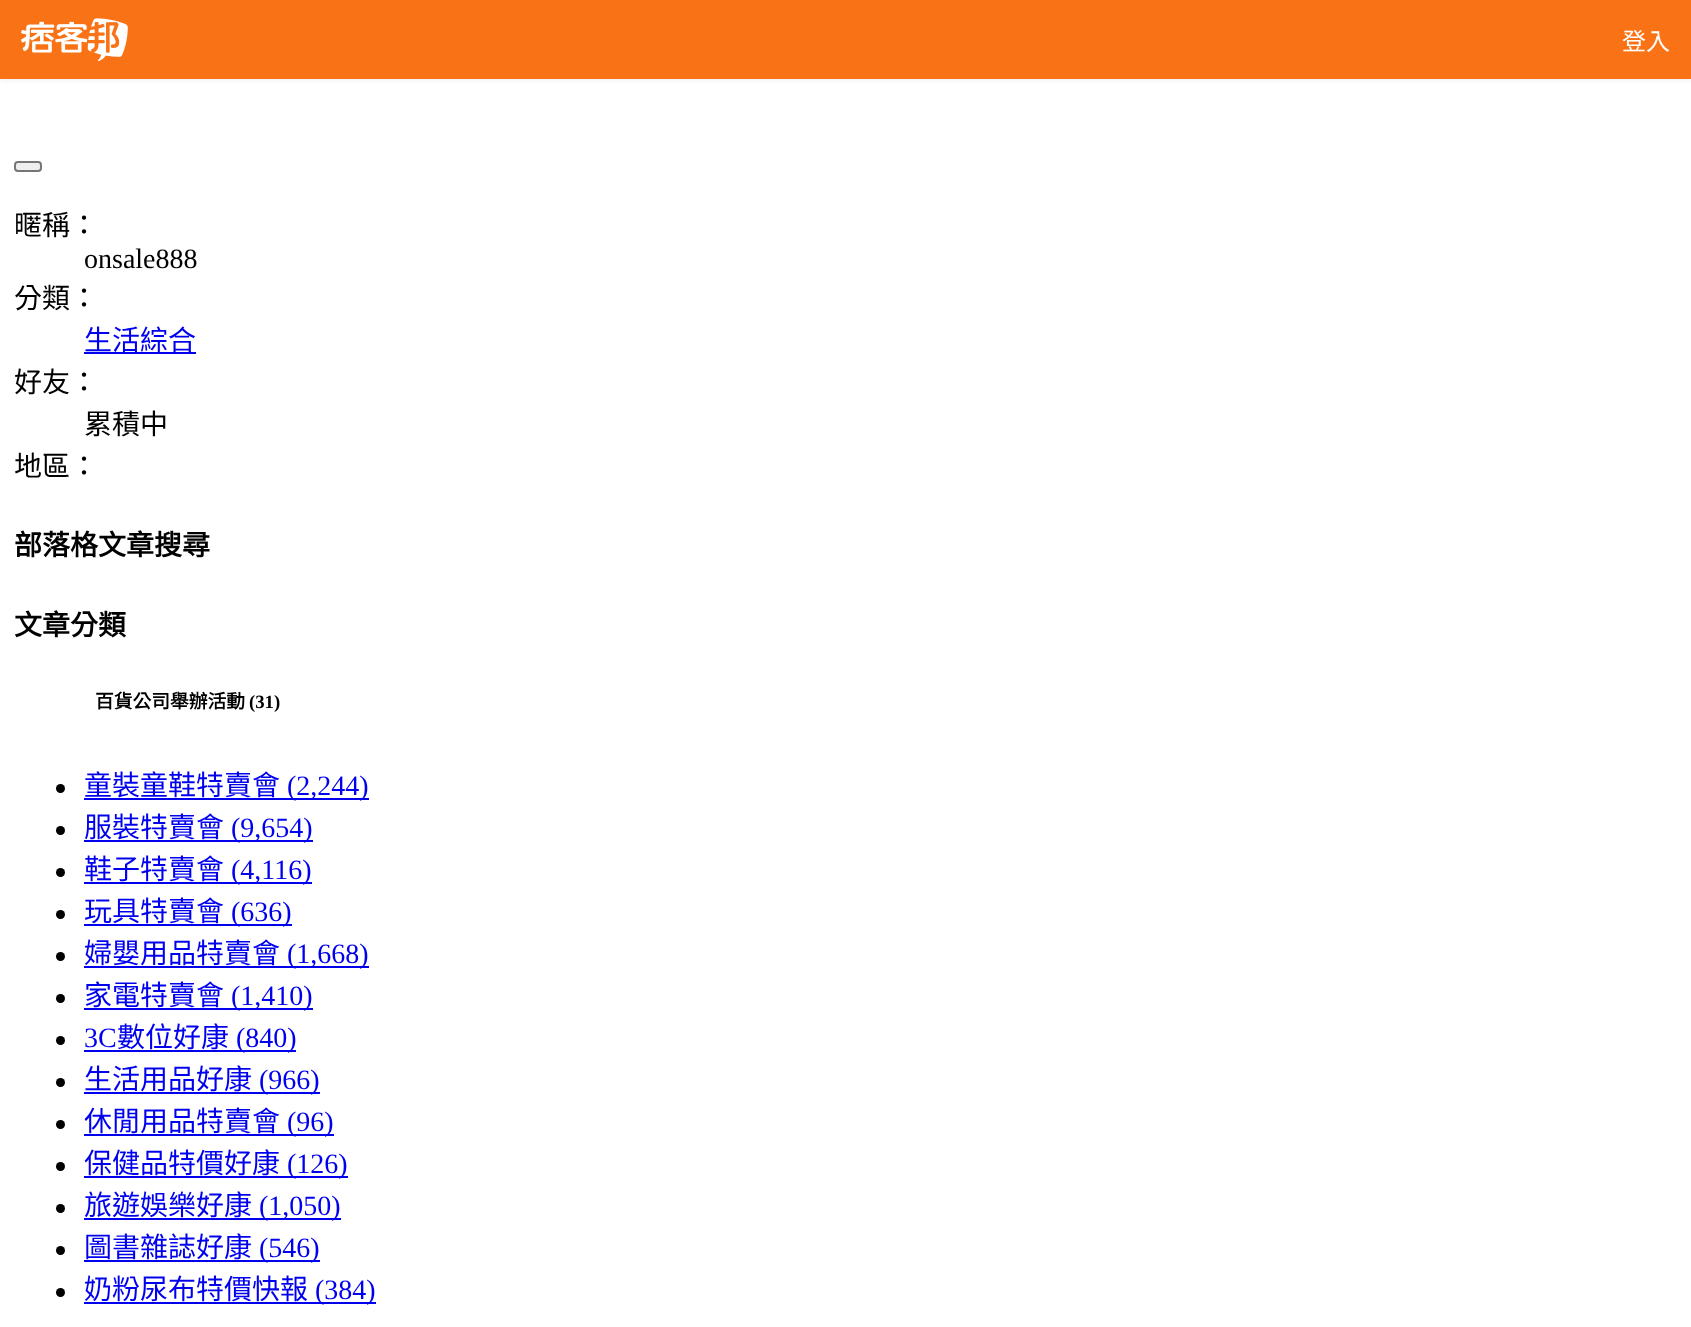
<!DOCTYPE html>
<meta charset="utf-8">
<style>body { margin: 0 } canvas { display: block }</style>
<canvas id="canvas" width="1691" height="1327"></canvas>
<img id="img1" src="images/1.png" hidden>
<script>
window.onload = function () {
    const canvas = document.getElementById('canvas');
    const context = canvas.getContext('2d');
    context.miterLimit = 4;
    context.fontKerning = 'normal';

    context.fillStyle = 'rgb(255, 255, 255)';
    context.fillRect(0, 0, 1691, 1327);
    context.fillStyle = 'rgba(0, 0, 0, 0.05)';
    context.filter = 'blur(2px)';
    context.beginPath();
    context.rect(0, 2, 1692, 79);
    context.fill();
    context.filter = 'none';
    context.fillStyle = 'rgb(249, 115, 22)';
    context.fillRect(0, 0, 1691, 79);
    context.drawImage(document.getElementById('img1'), 21, 18, 107, 43);
    context.fillStyle = 'rgb(239, 239, 239)';
    context.beginPath();
    context.roundRect(15, 162, 26, 9, 3);
    context.fill();
    context.strokeStyle = 'rgb(118, 118, 118)';
    context.lineWidth = 2;
    context.stroke();
    context.fillStyle = 'rgb(0, 0, 238)';
    context.fillRect(84, 352, 112, 2);
    context.fillStyle = 'rgb(0, 0, 0)';
    context.beginPath();
    context.arc(60.5, 788.5, 4.5, 0, 2 * Math.PI);
    context.fill();
    context.fillStyle = 'rgb(0, 0, 238)';
    context.fillRect(84, 798, 285, 2);
    context.fillStyle = 'rgb(0, 0, 0)';
    context.beginPath();
    context.arc(60.5, 830.5, 4.5, 0, 2 * Math.PI);
    context.fill();
    context.fillStyle = 'rgb(0, 0, 238)';
    context.fillRect(84, 840, 229, 2);
    context.fillStyle = 'rgb(0, 0, 0)';
    context.beginPath();
    context.arc(60.5, 872.5, 4.5, 0, 2 * Math.PI);
    context.fill();
    context.fillStyle = 'rgb(0, 0, 238)';
    context.fillRect(84, 882, 228, 2);
    context.fillStyle = 'rgb(0, 0, 0)';
    context.beginPath();
    context.arc(60.5, 914.5, 4.5, 0, 2 * Math.PI);
    context.fill();
    context.fillStyle = 'rgb(0, 0, 238)';
    context.fillRect(84, 924, 208, 2);
    context.fillStyle = 'rgb(0, 0, 0)';
    context.beginPath();
    context.arc(60.5, 956.5, 4.5, 0, 2 * Math.PI);
    context.fill();
    context.fillStyle = 'rgb(0, 0, 238)';
    context.fillRect(84, 966, 285, 2);
    context.fillStyle = 'rgb(0, 0, 0)';
    context.beginPath();
    context.arc(60.5, 998.5, 4.5, 0, 2 * Math.PI);
    context.fill();
    context.fillStyle = 'rgb(0, 0, 238)';
    context.fillRect(84, 1008, 229, 2);
    context.fillStyle = 'rgb(0, 0, 0)';
    context.beginPath();
    context.arc(60.5, 1040.5, 4.5, 0, 2 * Math.PI);
    context.fill();
    context.fillStyle = 'rgb(0, 0, 238)';
    context.fillRect(84, 1050, 212, 2);
    context.fillStyle = 'rgb(0, 0, 0)';
    context.beginPath();
    context.arc(60.5, 1082.5, 4.5, 0, 2 * Math.PI);
    context.fill();
    context.fillStyle = 'rgb(0, 0, 238)';
    context.fillRect(84, 1092, 236, 2);
    context.fillStyle = 'rgb(0, 0, 0)';
    context.beginPath();
    context.arc(60.5, 1124.5, 4.5, 0, 2 * Math.PI);
    context.fill();
    context.fillStyle = 'rgb(0, 0, 238)';
    context.fillRect(84, 1134, 250, 2);
    context.fillStyle = 'rgb(0, 0, 0)';
    context.beginPath();
    context.arc(60.5, 1166.5, 4.5, 0, 2 * Math.PI);
    context.fill();
    context.fillStyle = 'rgb(0, 0, 238)';
    context.fillRect(84, 1176, 264, 2);
    context.fillStyle = 'rgb(0, 0, 0)';
    context.beginPath();
    context.arc(60.5, 1208.5, 4.5, 0, 2 * Math.PI);
    context.fill();
    context.fillStyle = 'rgb(0, 0, 238)';
    context.fillRect(84, 1218, 257, 2);
    context.fillStyle = 'rgb(0, 0, 0)';
    context.beginPath();
    context.arc(60.5, 1250.5, 4.5, 0, 2 * Math.PI);
    context.fill();
    context.fillStyle = 'rgb(0, 0, 238)';
    context.fillRect(84, 1260, 236, 2);
    context.fillStyle = 'rgb(0, 0, 0)';
    context.beginPath();
    context.arc(60.5, 1292.5, 4.5, 0, 2 * Math.PI);
    context.fill();
    context.fillStyle = 'rgb(0, 0, 238)';
    context.fillRect(84, 1302, 292, 2);
    context.font = '24px Noto Sans CJK TC';
    context.fillStyle = 'rgb(255, 255, 255)';
    context.fillText('登入', 1622, 50);
    context.font = '28px Noto Sans CJK TC';
    context.fillStyle = 'rgb(0, 0, 0)';
    context.fillText('暱稱：', 14, 235);
    context.font = '28px Liberation Serif';
    context.fillText('onsale888', 84, 268);
    context.font = '28px Noto Sans CJK TC';
    context.fillText('分類：', 14, 308);
    context.fillStyle = 'rgb(0, 0, 238)';
    context.fillText('生活綜合', 84, 350);
    context.fillStyle = 'rgb(0, 0, 0)';
    context.fillText('好友：', 14, 392);
    context.fillText('累積中', 84, 434);
    context.fillText('地區：', 14, 476);
    context.font = 'bold 28px Noto Sans CJK TC';
    context.fillText('部落格文章搜尋', 14, 555);
    context.fillText('文章分類', 14, 635);
    context.font = 'bold 18.75px Noto Sans CJK TC';
    context.fillText('百貨公司舉辦活動', 95, 708);
    context.font = 'bold 18.75px Liberation Serif';
    context.fillText('(31)', 249, 708);
    context.font = '28px Noto Sans CJK TC';
    context.fillStyle = 'rgb(0, 0, 238)';
    context.fillText('童裝童鞋特賣會', 84, 795);
    context.font = '28px Liberation Serif';
    context.fillText('(2,244)', 287, 795);
    context.font = '28px Noto Sans CJK TC';
    context.fillText('服裝特賣會', 84, 837);
    context.font = '28px Liberation Serif';
    context.fillText('(9,654)', 231, 837);
    context.font = '28px Noto Sans CJK TC';
    context.fillText('鞋子特賣會', 84, 879);
    context.font = '28px Liberation Serif';
    context.fillText('(4,116)', 231, 879);
    context.font = '28px Noto Sans CJK TC';
    context.fillText('玩具特賣會', 84, 921);
    context.font = '28px Liberation Serif';
    context.fillText('(636)', 231, 921);
    context.font = '28px Noto Sans CJK TC';
    context.fillText('婦嬰用品特賣會', 84, 963);
    context.font = '28px Liberation Serif';
    context.fillText('(1,668)', 287, 963);
    context.font = '28px Noto Sans CJK TC';
    context.fillText('家電特賣會', 84, 1005);
    context.font = '28px Liberation Serif';
    context.fillText('(1,410)', 231, 1005);
    context.fillText('3C', 84, 1047);
    context.font = '28px Noto Sans CJK TC';
    context.fillText('數位好康', 117, 1047);
    context.font = '28px Liberation Serif';
    context.fillText('(840)', 236, 1047);
    context.font = '28px Noto Sans CJK TC';
    context.fillText('生活用品好康', 84, 1089);
    context.font = '28px Liberation Serif';
    context.fillText('(966)', 259, 1089);
    context.font = '28px Noto Sans CJK TC';
    context.fillText('休閒用品特賣會', 84, 1131);
    context.font = '28px Liberation Serif';
    context.fillText('(96)', 287, 1131);
    context.font = '28px Noto Sans CJK TC';
    context.fillText('保健品特價好康', 84, 1173);
    context.font = '28px Liberation Serif';
    context.fillText('(126)', 287, 1173);
    context.font = '28px Noto Sans CJK TC';
    context.fillText('旅遊娛樂好康', 84, 1215);
    context.font = '28px Liberation Serif';
    context.fillText('(1,050)', 259, 1215);
    context.font = '28px Noto Sans CJK TC';
    context.fillText('圖書雜誌好康', 84, 1257);
    context.font = '28px Liberation Serif';
    context.fillText('(546)', 259, 1257);
    context.font = '28px Noto Sans CJK TC';
    context.fillText('奶粉尿布特價快報', 84, 1299);
    context.font = '28px Liberation Serif';
    context.fillText('(384)', 315, 1299);
};
</script>
